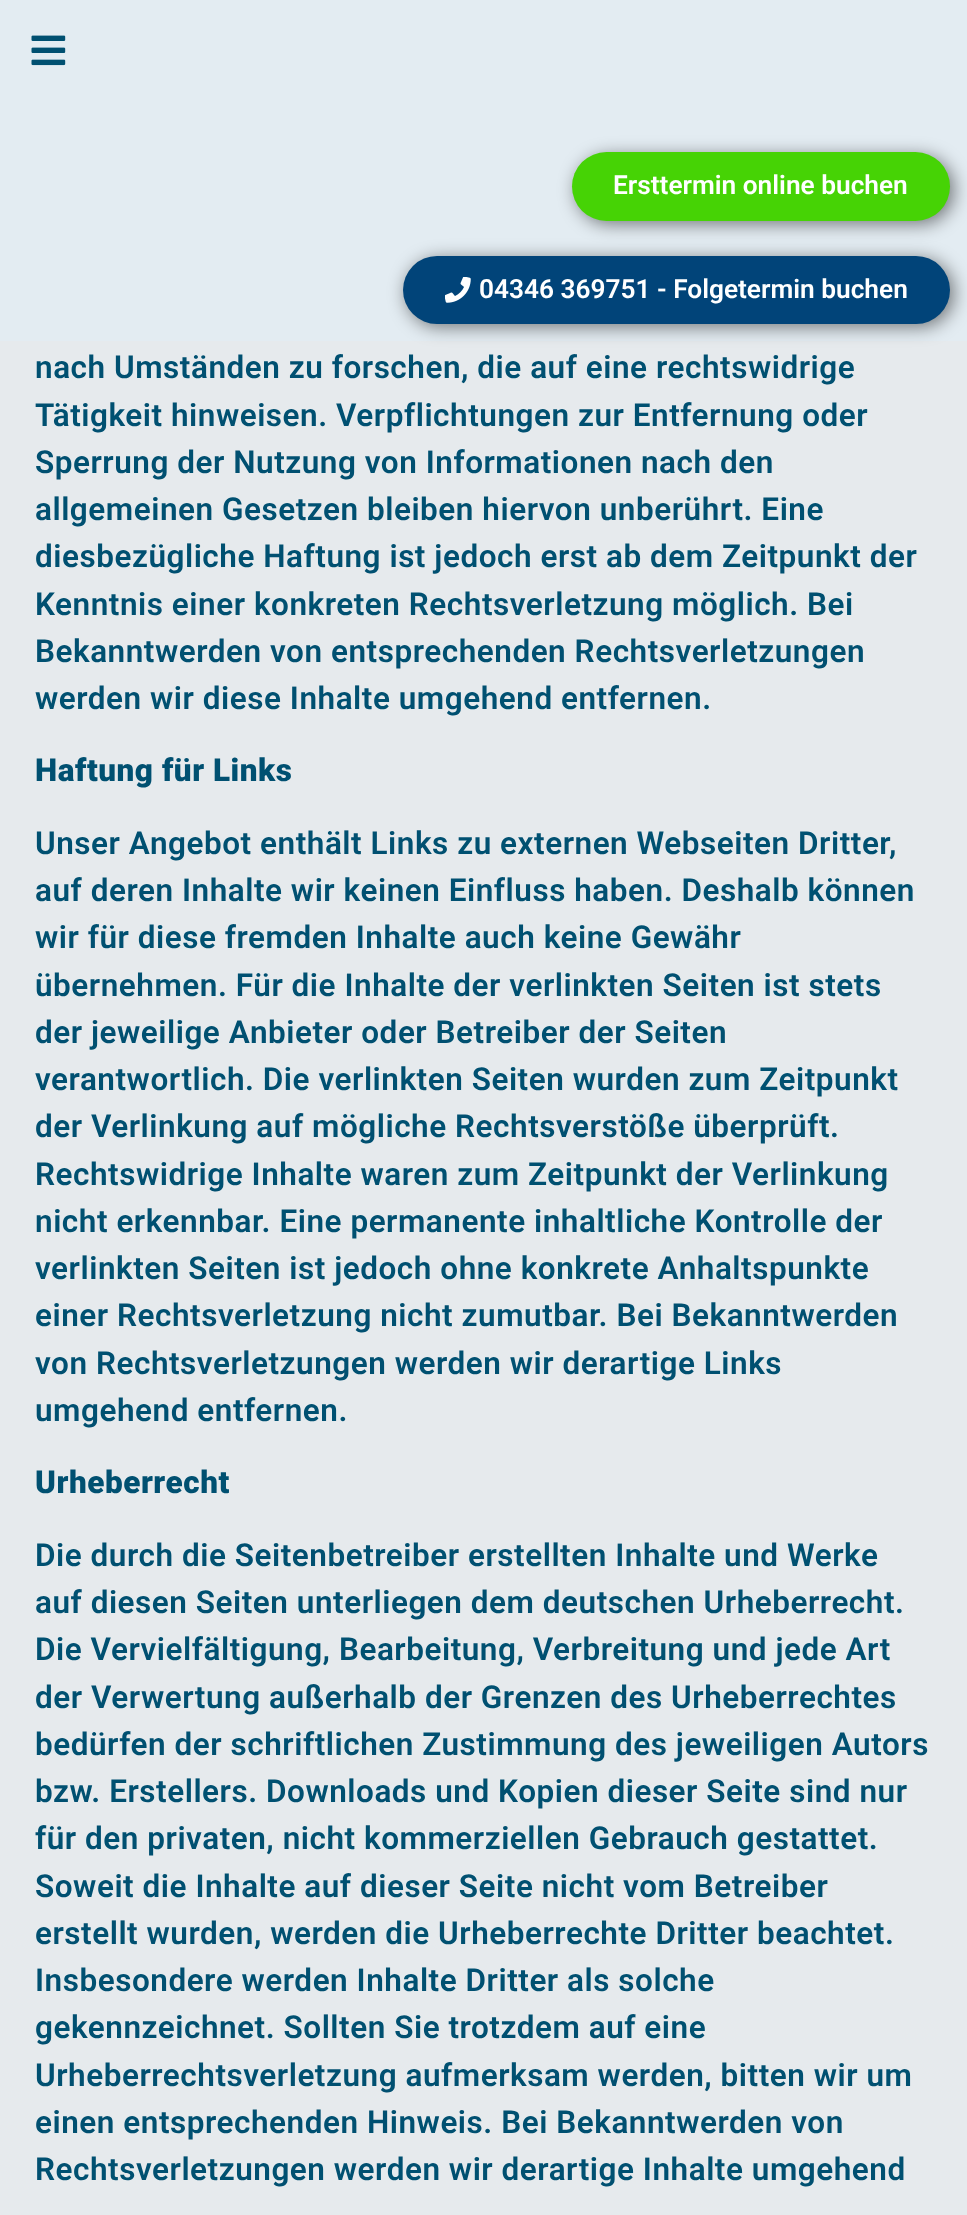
<!DOCTYPE html>
<meta charset="utf-8">
<style>body { margin: 0 } canvas { display: block }</style>
<canvas id="canvas" width="967" height="2215"></canvas>
<img id="img1" src="images/1.png" hidden>
<img id="img2" src="images/2.png" hidden>
<script>
window.onload = function () {
    const canvas = document.getElementById('canvas');
    const context = canvas.getContext('2d');
    context.miterLimit = 4;
    context.fontKerning = 'normal';

    context.fillStyle = 'rgb(230, 234, 237)';
    context.fillRect(0, 0, 967, 2215);
    context.fillStyle = 'rgb(227, 236, 242)';
    context.fillRect(0, 0, 967, 341);
    context.drawImage(document.getElementById('img1'), 31, 35, 35, 31);
    context.fillStyle = 'rgba(0, 0, 0, 0.5)';
    context.filter = 'blur(9px)';
    context.beginPath();
    context.roundRect(576, 156, 378, 68, 34);
    context.fill();
    context.filter = 'none';
    context.fillStyle = 'rgb(70, 211, 5)';
    context.beginPath();
    context.roundRect(572, 152, 378, 69, 34.5);
    context.fill();
    context.fillStyle = 'rgba(0, 0, 0, 0.5)';
    context.filter = 'blur(9px)';
    context.beginPath();
    context.roundRect(406, 259, 548, 68, 34);
    context.fill();
    context.filter = 'none';
    context.fillStyle = 'rgb(1, 68, 121)';
    context.beginPath();
    context.roundRect(403, 256, 547, 68, 34);
    context.fill();
    context.drawImage(document.getElementById('img2'), 445, 277, 26, 26);
    context.font = '600 26.25px Roboto';
    context.fillStyle = 'rgb(255, 255, 255)';
    context.fillText('Ersttermin online buchen', 613, 194);
    context.fillText('04346 369751 - Folgetermin buchen', 479, 298);
    context.letterSpacing = '0.53px';
    context.font = '600 31.5px Roboto';
    context.fillStyle = 'rgb(0, 80, 113)';
    context.fillText('nach Umständen zu forschen, die auf eine rechtswidrige', 35, 378);
    context.fillText('Tätigkeit hinweisen. Verpflichtungen zur Entfernung oder', 35, 426);
    context.fillText('Sperrung der Nutzung von Informationen nach den', 35, 473);
    context.fillText('allgemeinen Gesetzen bleiben hiervon unberührt. Eine', 35, 520);
    context.fillText('diesbezügliche Haftung ist jedoch erst ab dem Zeitpunkt der', 35, 567);
    context.fillText('Kenntnis einer konkreten Rechtsverletzung möglich. Bei', 35, 615);
    context.fillText('Bekanntwerden von entsprechenden Rechtsverletzungen', 35, 662);
    context.fillText('werden wir diese Inhalte umgehend entfernen.', 35, 709);
    context.font = '900 31.5px Roboto';
    context.fillText('Haftung für Links', 35, 781);
    context.font = '600 31.5px Roboto';
    context.fillText('Unser Angebot enthält Links zu externen Webseiten Dritter,', 35, 854);
    context.fillText('auf deren Inhalte wir keinen Einfluss haben. Deshalb können', 35, 901);
    context.fillText('wir für diese fremden Inhalte auch keine Gewähr', 35, 948);
    context.fillText('übernehmen. Für die Inhalte der verlinkten Seiten ist stets', 35, 996);
    context.fillText('der jeweilige Anbieter oder Betreiber der Seiten', 35, 1043);
    context.fillText('verantwortlich. Die verlinkten Seiten wurden zum Zeitpunkt', 35, 1090);
    context.fillText('der Verlinkung auf mögliche Rechtsverstöße überprüft.', 35, 1137);
    context.fillText('Rechtswidrige Inhalte waren zum Zeitpunkt der Verlinkung', 35, 1185);
    context.fillText('nicht erkennbar. Eine permanente inhaltliche Kontrolle der', 35, 1232);
    context.fillText('verlinkten Seiten ist jedoch ohne konkrete Anhaltspunkte', 35, 1279);
    context.fillText('einer Rechtsverletzung nicht zumutbar. Bei Bekanntwerden', 35, 1326);
    context.fillText('von Rechtsverletzungen werden wir derartige Links', 35, 1374);
    context.fillText('umgehend entfernen.', 35, 1421);
    context.font = '900 31.5px Roboto';
    context.fillText('Urheberrecht', 35, 1493);
    context.font = '600 31.5px Roboto';
    context.fillText('Die durch die Seitenbetreiber erstellten Inhalte und Werke', 35, 1566);
    context.fillText('auf diesen Seiten unterliegen dem deutschen Urheberrecht.', 35, 1613);
    context.fillText('Die Vervielfältigung, Bearbeitung, Verbreitung und jede Art', 35, 1660);
    context.fillText('der Verwertung außerhalb der Grenzen des Urheberrechtes', 35, 1708);
    context.fillText('bedürfen der schriftlichen Zustimmung des jeweiligen Autors', 35, 1755);
    context.fillText('bzw. Erstellers. Downloads und Kopien dieser Seite sind nur', 35, 1802);
    context.fillText('für den privaten, nicht kommerziellen Gebrauch gestattet.', 35, 1849);
    context.fillText('Soweit die Inhalte auf dieser Seite nicht vom Betreiber', 35, 1897);
    context.fillText('erstellt wurden, werden die Urheberrechte Dritter beachtet.', 35, 1944);
    context.fillText('Insbesondere werden Inhalte Dritter als solche', 35, 1991);
    context.fillText('gekennzeichnet. Sollten Sie trotzdem auf eine', 35, 2038);
    context.fillText('Urheberrechtsverletzung aufmerksam werden, bitten wir um', 35, 2086);
    context.fillText('einen entsprechenden Hinweis. Bei Bekanntwerden von', 35, 2133);
    context.fillText('Rechtsverletzungen werden wir derartige Inhalte umgehend', 35, 2180);
};
</script>
